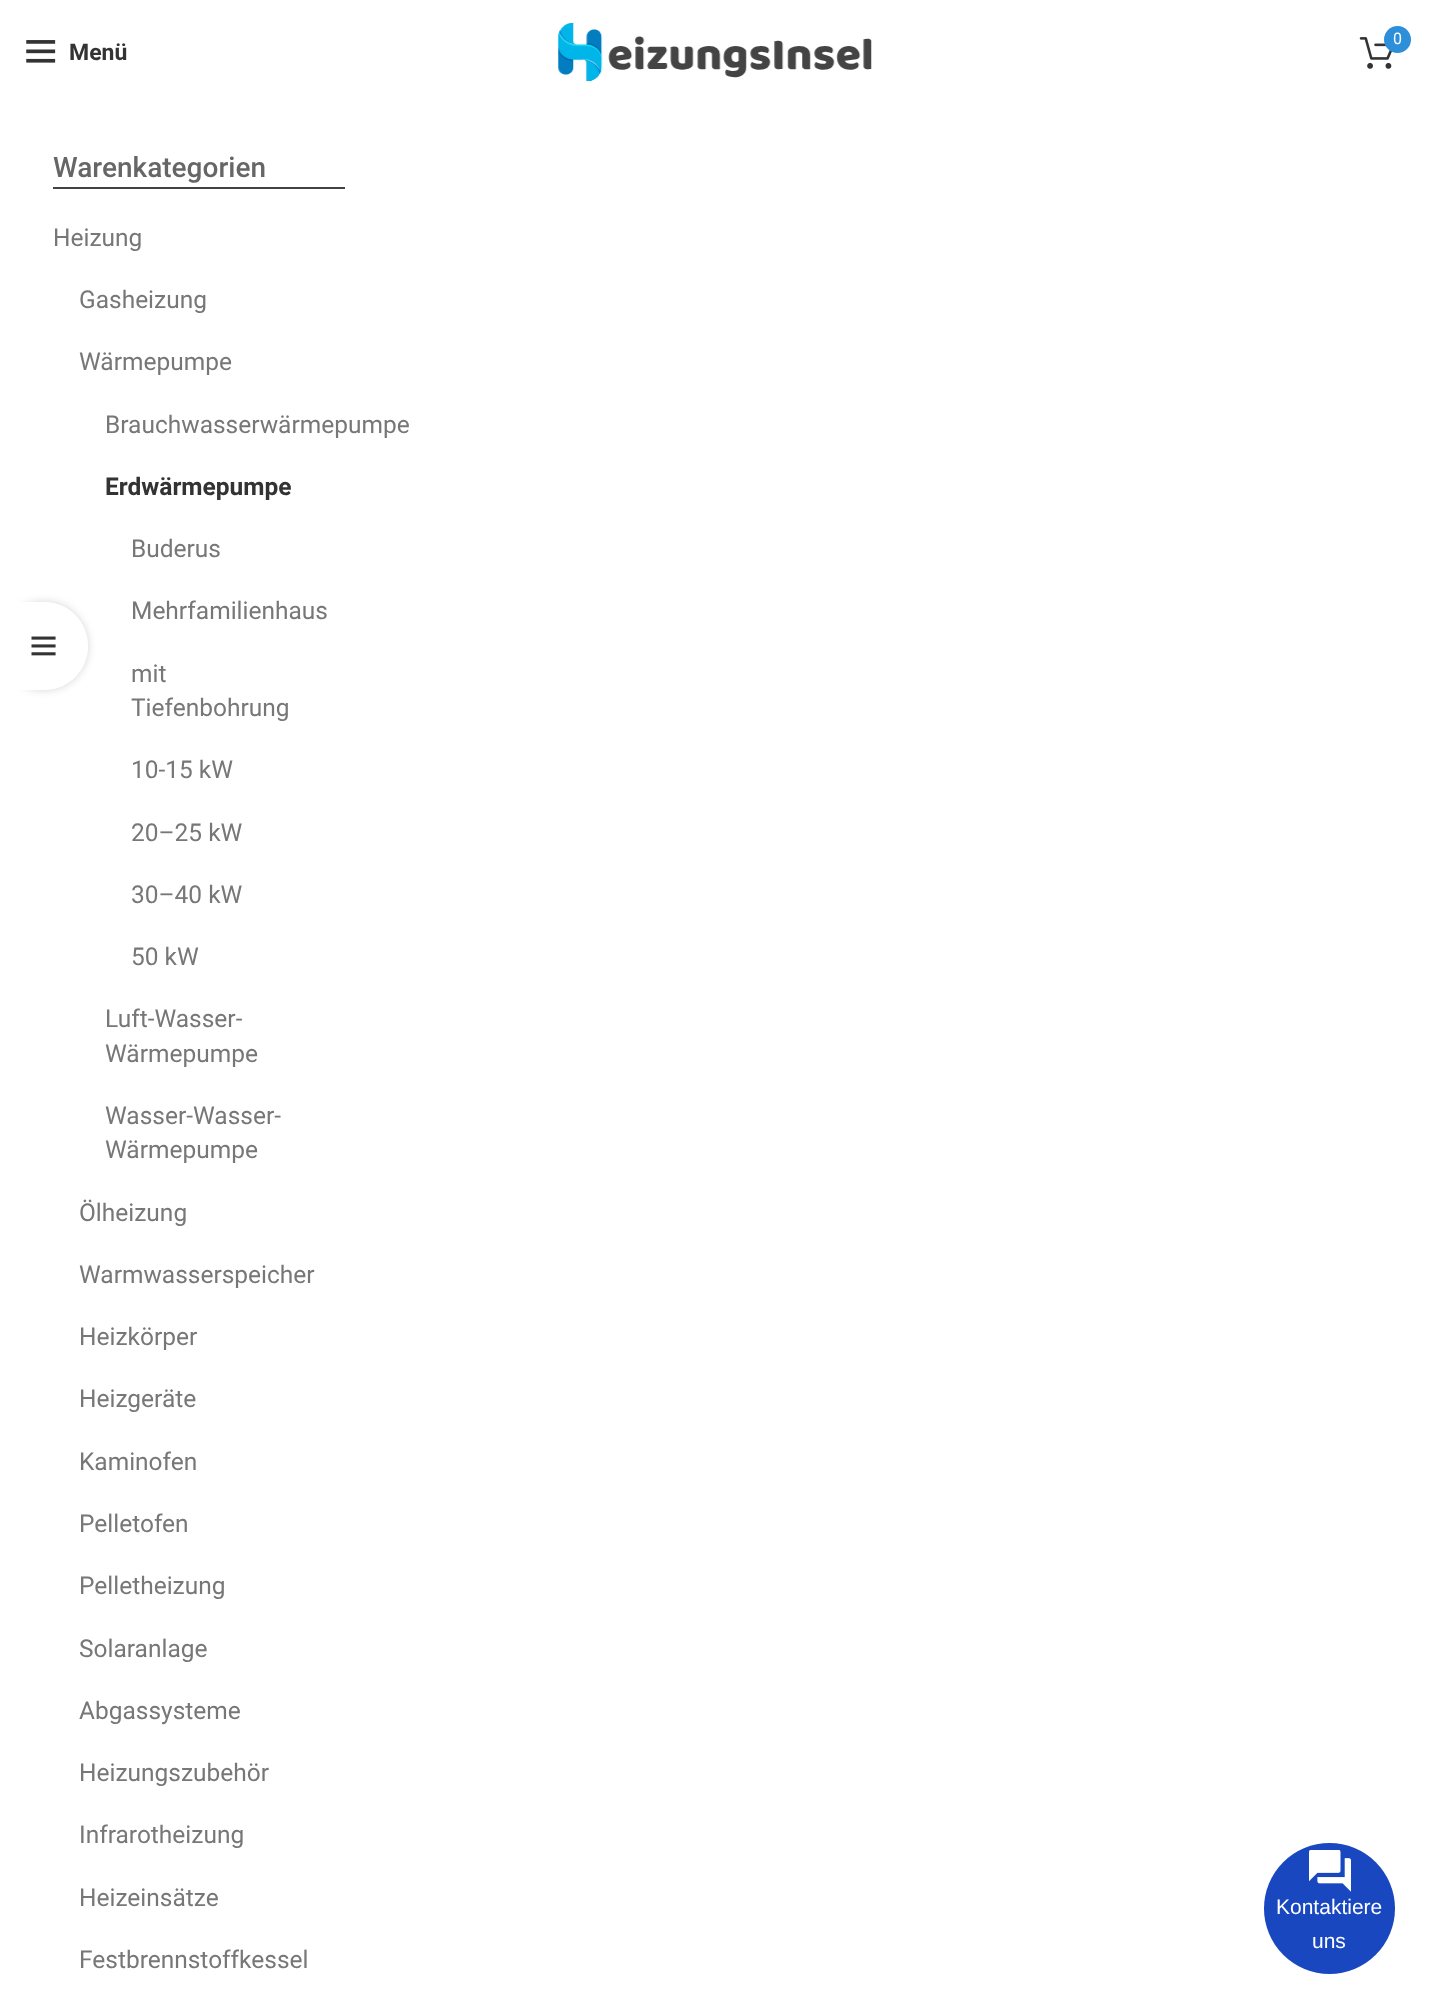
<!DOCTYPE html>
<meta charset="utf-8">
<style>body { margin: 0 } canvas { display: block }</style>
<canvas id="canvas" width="1429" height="2008"></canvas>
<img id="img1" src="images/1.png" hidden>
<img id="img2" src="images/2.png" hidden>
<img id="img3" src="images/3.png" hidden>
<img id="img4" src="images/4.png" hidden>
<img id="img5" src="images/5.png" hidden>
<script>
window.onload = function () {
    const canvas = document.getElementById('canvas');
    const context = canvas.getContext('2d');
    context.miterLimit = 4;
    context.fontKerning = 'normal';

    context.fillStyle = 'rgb(255, 255, 255)';
    context.fillRect(0, 0, 1429, 2008);
    context.drawImage(document.getElementById('img1'), 558, 23, 314, 59);
    context.drawImage(document.getElementById('img2'), 1359, 37, 34, 32);
    context.fillStyle = 'rgb(45, 142, 218)';
    context.beginPath();
    context.arc(1397.5, 39.5, 13.5, 0, 2 * Math.PI);
    context.fill();
    context.drawImage(document.getElementById('img3'), 26, 40, 30, 23);
    context.save();
    context.beginPath();
    context.moveTo(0, 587);
    context.lineTo(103, 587);
    context.lineTo(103, 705);
    context.lineTo(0, 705);
    context.closePath();
    context.moveTo(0, 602);
    context.lineTo(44, 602);
    context.bezierCurveTo(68.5, 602, 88, 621.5, 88, 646);
    context.bezierCurveTo(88, 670.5, 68.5, 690, 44, 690);
    context.lineTo(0, 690);
    context.closePath();
    context.clip('evenodd');
    context.fillStyle = 'rgba(0, 0, 0, 0.17)';
    context.filter = 'blur(4.5px)';
    context.beginPath();
    context.roundRect(0, 602, 88, 88, 44);
    context.fill();
    context.filter = 'none';
    context.restore();
    context.fillStyle = 'rgba(255, 255, 255, 0.9)';
    context.beginPath();
    context.roundRect(0, 602, 88, 88, [0, 44, 44, 0]);
    context.fill();
    context.drawImage(document.getElementById('img4'), 31, 636, 25, 20);
    context.fillStyle = 'rgb(67, 67, 67)';
    context.fillRect(53, 187, 292, 2);
    context.fillStyle = 'rgb(24, 71, 192)';
    context.beginPath();
    context.arc(1329.5, 1908.5, 65.5, 0, 2 * Math.PI);
    context.fill();
    context.drawImage(document.getElementById('img5'), 1309, 1850, 42, 42);
    context.font = '16px Roboto';
    context.fillStyle = 'rgb(255, 255, 255)';
    context.fillText('0', 1393, 44);
    context.font = 'bold 23px Roboto';
    context.fillStyle = 'rgb(51, 51, 51)';
    context.fillText('Menü', 69, 60);
    context.font = '500 28px Roboto';
    context.fillStyle = 'rgb(102, 102, 102)';
    context.fillText('Warenkategorien', 53, 177);
    context.font = '24.5px Roboto';
    context.fillStyle = 'rgb(119, 119, 119)';
    context.fillText('Heizung', 53, 246);
    context.fillText('Gasheizung', 79, 308);
    context.fillText('Wärmepumpe', 79, 370);
    context.fillText('Brauchwasserwärmepumpe', 105, 433);
    context.font = 'bold 24.5px Roboto';
    context.fillStyle = 'rgb(51, 51, 51)';
    context.fillText('Erdwärmepumpe', 105, 495);
    context.font = '24.5px Roboto';
    context.fillStyle = 'rgb(119, 119, 119)';
    context.fillText('Buderus', 131, 557);
    context.fillText('Mehrfamilienhaus', 131, 619);
    context.fillText('mit', 131, 682);
    context.fillText('Tiefenbohrung', 131, 716);
    context.fillText('10-15 kW', 131, 778);
    context.fillText('20–25 kW', 131, 841);
    context.fillText('30–40 kW', 131, 903);
    context.fillText('50 kW', 131, 965);
    context.fillText('Luft-Wasser-', 105, 1027);
    context.fillText('Wärmepumpe', 105, 1062);
    context.fillText('Wasser-Wasser-', 105, 1124);
    context.fillText('Wärmepumpe', 105, 1158);
    context.fillText('Ölheizung', 79, 1221);
    context.fillText('Warmwasserspeicher', 79, 1283);
    context.fillText('Heizkörper', 79, 1345);
    context.fillText('Heizgeräte', 79, 1407);
    context.fillText('Kaminofen', 79, 1470);
    context.fillText('Pelletofen', 79, 1532);
    context.fillText('Pelletheizung', 79, 1594);
    context.fillText('Solaranlage', 79, 1657);
    context.fillText('Abgassysteme', 79, 1719);
    context.fillText('Heizungszubehör', 79, 1781);
    context.fillText('Infrarotheizung', 79, 1843);
    context.fillText('Heizeinsätze', 79, 1906);
    context.fillText('Festbrennstoffkessel', 79, 1968);
    context.font = '21px Liberation Sans';
    context.fillStyle = 'rgb(255, 255, 255)';
    context.fillText('Kontaktiere', 1276, 1914);
    context.fillText('uns', 1312, 1948);
};
</script>
